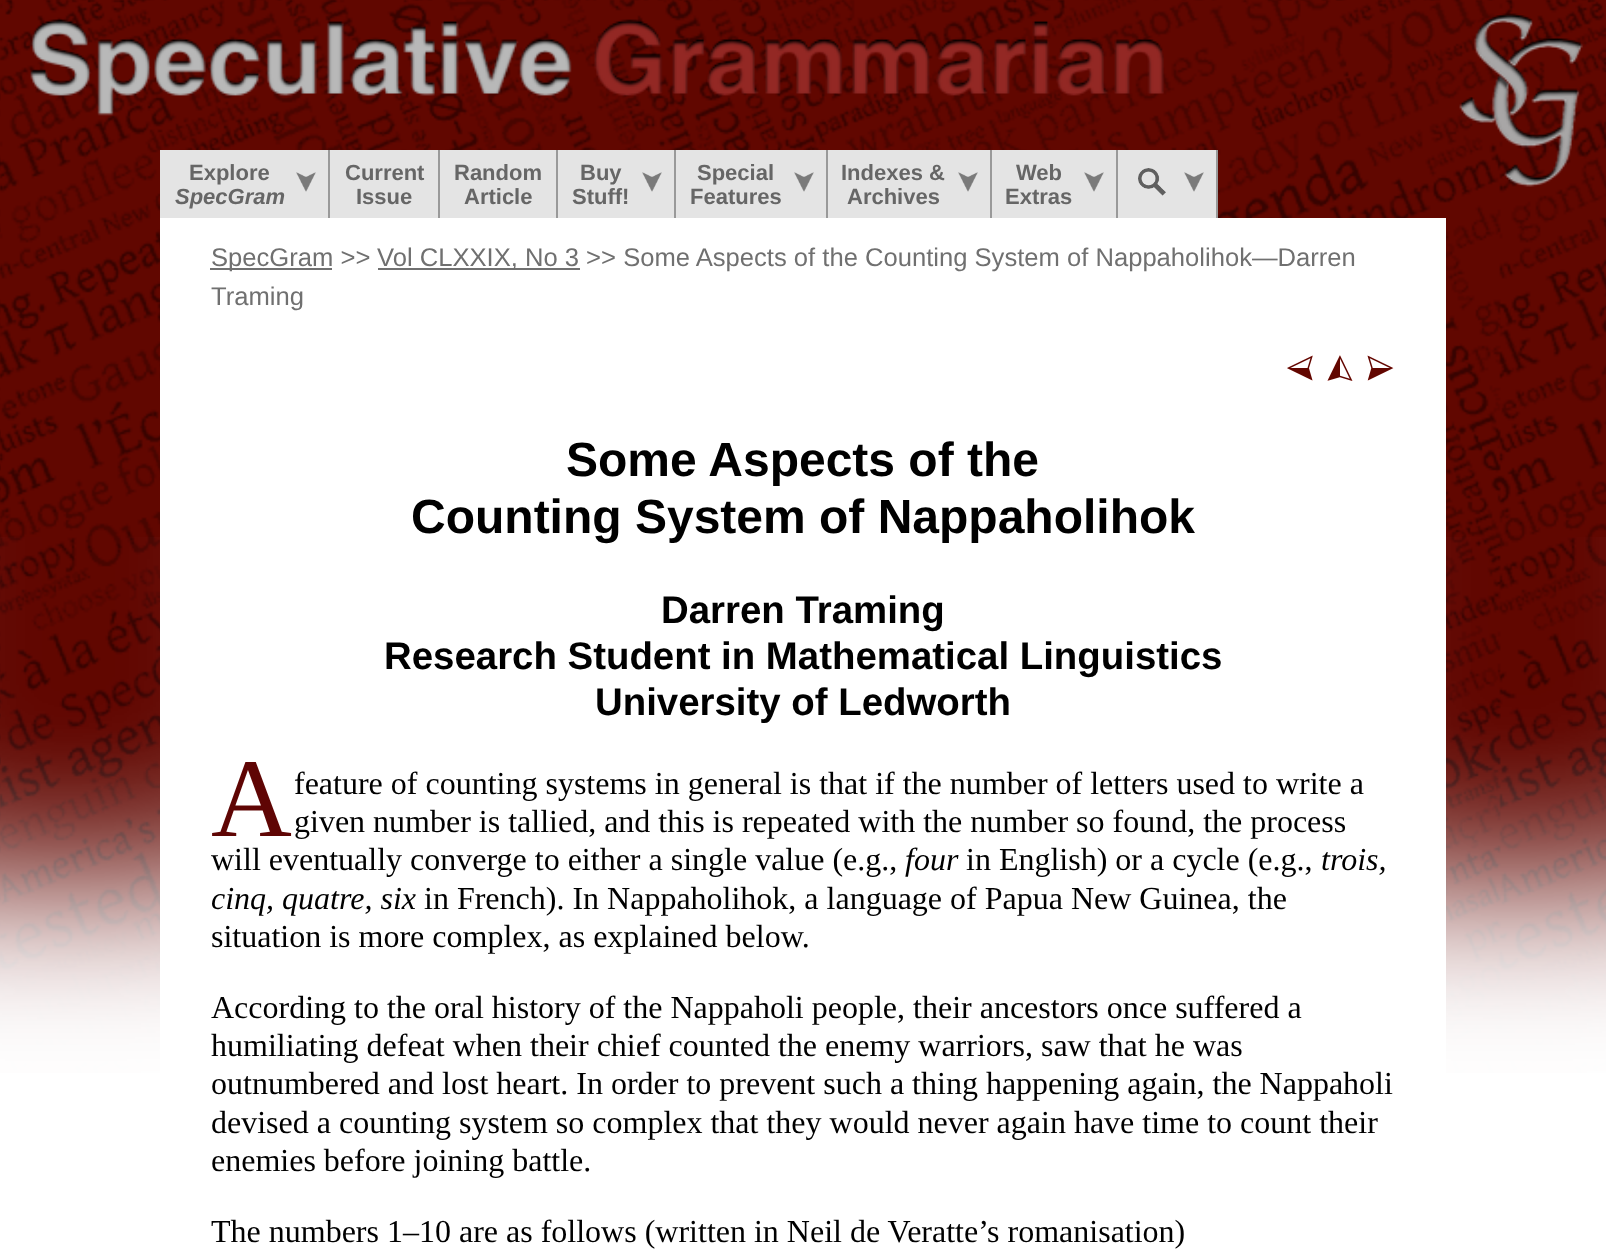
<!DOCTYPE html>
<meta charset="utf-8">
<style>body { margin: 0 } canvas { display: block }</style>
<canvas id="canvas" width="1606" height="1259"></canvas>
<img id="img1" src="images/1.png" hidden>
<img id="img2" src="images/2.png" hidden>
<img id="img3" src="images/3.png" hidden>
<img id="img4" src="images/4.png" hidden>
<img id="img5" src="images/5.png" hidden>
<img id="img6" src="images/6.png" hidden>
<img id="img7" src="images/7.png" hidden>
<img id="img8" src="images/8.png" hidden>
<img id="img9" src="images/9.png" hidden>
<img id="img10" src="images/10.png" hidden>
<img id="img11" src="images/11.png" hidden>
<script>
window.onload = function () {
    const canvas = document.getElementById('canvas');
    const context = canvas.getContext('2d');
    context.miterLimit = 4;
    context.fontKerning = 'normal';

    context.fillStyle = 'rgb(255, 255, 255)';
    context.fillRect(0, 0, 1606, 1259);
    context.drawImage(document.getElementById('img1'), 0, 0, 1606, 1073);
    context.drawImage(document.getElementById('img2'), 30, 19, 1134, 97);
    context.drawImage(document.getElementById('img3'), 1459, 13, 124, 174);
    context.fillStyle = 'rgb(228, 228, 228)';
    context.fillRect(160, 150, 168, 68);
    context.fillStyle = 'rgb(153, 153, 153)';
    context.fillRect(328, 150, 2, 68);
    context.drawImage(document.getElementById('img4'), 296, 172, 20, 20);
    context.fillStyle = 'rgb(228, 228, 228)';
    context.fillRect(330, 150, 108, 68);
    context.fillStyle = 'rgb(153, 153, 153)';
    context.fillRect(438, 150, 2, 68);
    context.fillStyle = 'rgb(228, 228, 228)';
    context.fillRect(440, 150, 116, 68);
    context.fillStyle = 'rgb(153, 153, 153)';
    context.fillRect(556, 150, 2, 68);
    context.fillStyle = 'rgb(228, 228, 228)';
    context.fillRect(558, 150, 116, 68);
    context.fillStyle = 'rgb(153, 153, 153)';
    context.fillRect(674, 150, 2, 68);
    context.drawImage(document.getElementById('img4'), 642, 172, 20, 20);
    context.fillStyle = 'rgb(228, 228, 228)';
    context.fillRect(676, 150, 150, 68);
    context.fillStyle = 'rgb(153, 153, 153)';
    context.fillRect(826, 150, 2, 68);
    context.drawImage(document.getElementById('img5'), 794, 172, 20, 20);
    context.fillStyle = 'rgb(228, 228, 228)';
    context.fillRect(828, 150, 162, 68);
    context.fillStyle = 'rgb(153, 153, 153)';
    context.fillRect(990, 150, 2, 68);
    context.drawImage(document.getElementById('img4'), 958, 172, 20, 20);
    context.fillStyle = 'rgb(228, 228, 228)';
    context.fillRect(992, 150, 124, 68);
    context.fillStyle = 'rgb(153, 153, 153)';
    context.fillRect(1116, 150, 2, 68);
    context.drawImage(document.getElementById('img5'), 1084, 172, 20, 20);
    context.fillStyle = 'rgb(228, 228, 228)';
    context.fillRect(1118, 150, 98, 68);
    context.fillStyle = 'rgb(153, 153, 153)';
    context.fillRect(1216, 150, 2, 68);
    context.drawImage(document.getElementById('img6'), 1138, 168, 28, 28);
    context.drawImage(document.getElementById('img4'), 1184, 172, 20, 20);
    context.drawImage(document.getElementById('img7'), 0, 537, 160, 571);
    context.fillStyle = 'rgb(255, 255, 255)';
    context.fillRect(160, 218, 1286, 855);
    context.fillStyle = 'rgb(112, 112, 112)';
    context.fillRect(210, 268, 122, 2);
    context.fillRect(378, 268, 202, 2);
    context.drawImage(document.getElementById('img8'), 1287, 355, 26, 26);
    context.drawImage(document.getElementById('img9'), 1327, 355, 26, 26);
    context.drawImage(document.getElementById('img10'), 1367, 355, 27, 26);
    context.drawImage(document.getElementById('img11'), 1446, 537, 160, 571);
    context.font = 'bold 22px Liberation Sans';
    context.fillStyle = 'rgb(102, 102, 102)';
    context.fillText('Explore', 189, 180);
    context.font = 'italic bold 22px Liberation Sans';
    context.fillText('SpecGram', 175, 204);
    context.font = 'bold 22px Liberation Sans';
    context.fillText('Current', 345, 180);
    context.fillText('Issue', 356, 204);
    context.fillText('Random', 454, 180);
    context.fillText('Article', 464, 204);
    context.fillText('Buy', 580, 180);
    context.fillText('Stuff!', 572, 204);
    context.fillText('Special', 697, 180);
    context.fillText('Features', 690, 204);
    context.fillText('Indexes &', 841, 180);
    context.fillText('Archives', 847, 204);
    context.fillText('Web', 1016, 180);
    context.fillText('Extras', 1005, 204);
    context.font = '25.6px Liberation Sans';
    context.fillStyle = 'rgb(112, 112, 112)';
    context.fillText('SpecGram >>', 211, 266);
    context.fillText('Vol CLXXIX, No 3 >> Some Aspects of the Counting System of Nappaholihok—Darren', 377, 266);
    context.fillText('Traming', 211, 305);
    context.font = 'bold 48px Liberation Sans';
    context.fillStyle = 'rgb(0, 0, 0)';
    context.fillText('Some Aspects of the', 566, 476);
    context.fillText('Counting System of Nappaholihok', 411, 533);
    context.font = 'bold 38.4px Liberation Sans';
    context.fillText('Darren Traming', 661, 623);
    context.fillText('Research Student in Mathematical Linguistics', 384, 669);
    context.fillText('University of Ledworth', 595, 715);
    context.font = '112px Liberation Serif';
    context.fillStyle = 'rgb(95, 5, 4)';
    context.fillText('A', 211, 836);
    context.font = '32px Liberation Serif';
    context.fillStyle = 'rgb(0, 0, 0)';
    context.fillText('feature of counting systems in general is that if the number of letters used to write a', 294, 794);
    context.fillText('given number is tallied, and this is repeated with the number so found, the process', 294, 832);
    context.fillText('will eventually converge to either a single value (e.g.,', 211, 870);
    context.font = 'italic 32px Liberation Serif';
    context.fillText('four', 905, 870);
    context.font = '32px Liberation Serif';
    context.fillText('in English) or a cycle (e.g.,', 966, 870);
    context.font = 'italic 32px Liberation Serif';
    context.fillText('trois,', 1321, 870);
    context.fillText('cinq, quatre, six', 211, 909);
    context.font = '32px Liberation Serif';
    context.fillText('in French). In Nappaholihok, a language of Papua New Guinea, the', 424, 909);
    context.fillText('situation is more complex, as explained below.', 211, 947);
    context.fillText('According to the oral history of the Nappaholi people, their ancestors once suffered a', 211, 1018);
    context.fillText('humiliating defeat when their chief counted the enemy warriors, saw that he was', 211, 1056);
    context.fillText('outnumbered and lost heart. In order to prevent such a thing happening again, the Nappaholi', 211, 1094);
    context.fillText('devised a counting system so complex that they would never again have time to count their', 211, 1133);
    context.fillText('enemies before joining battle.', 211, 1171);
    context.fillText('The numbers 1–10 are as follows (written in Neil de Veratte’s romanisation)', 211, 1242);
};
</script>
